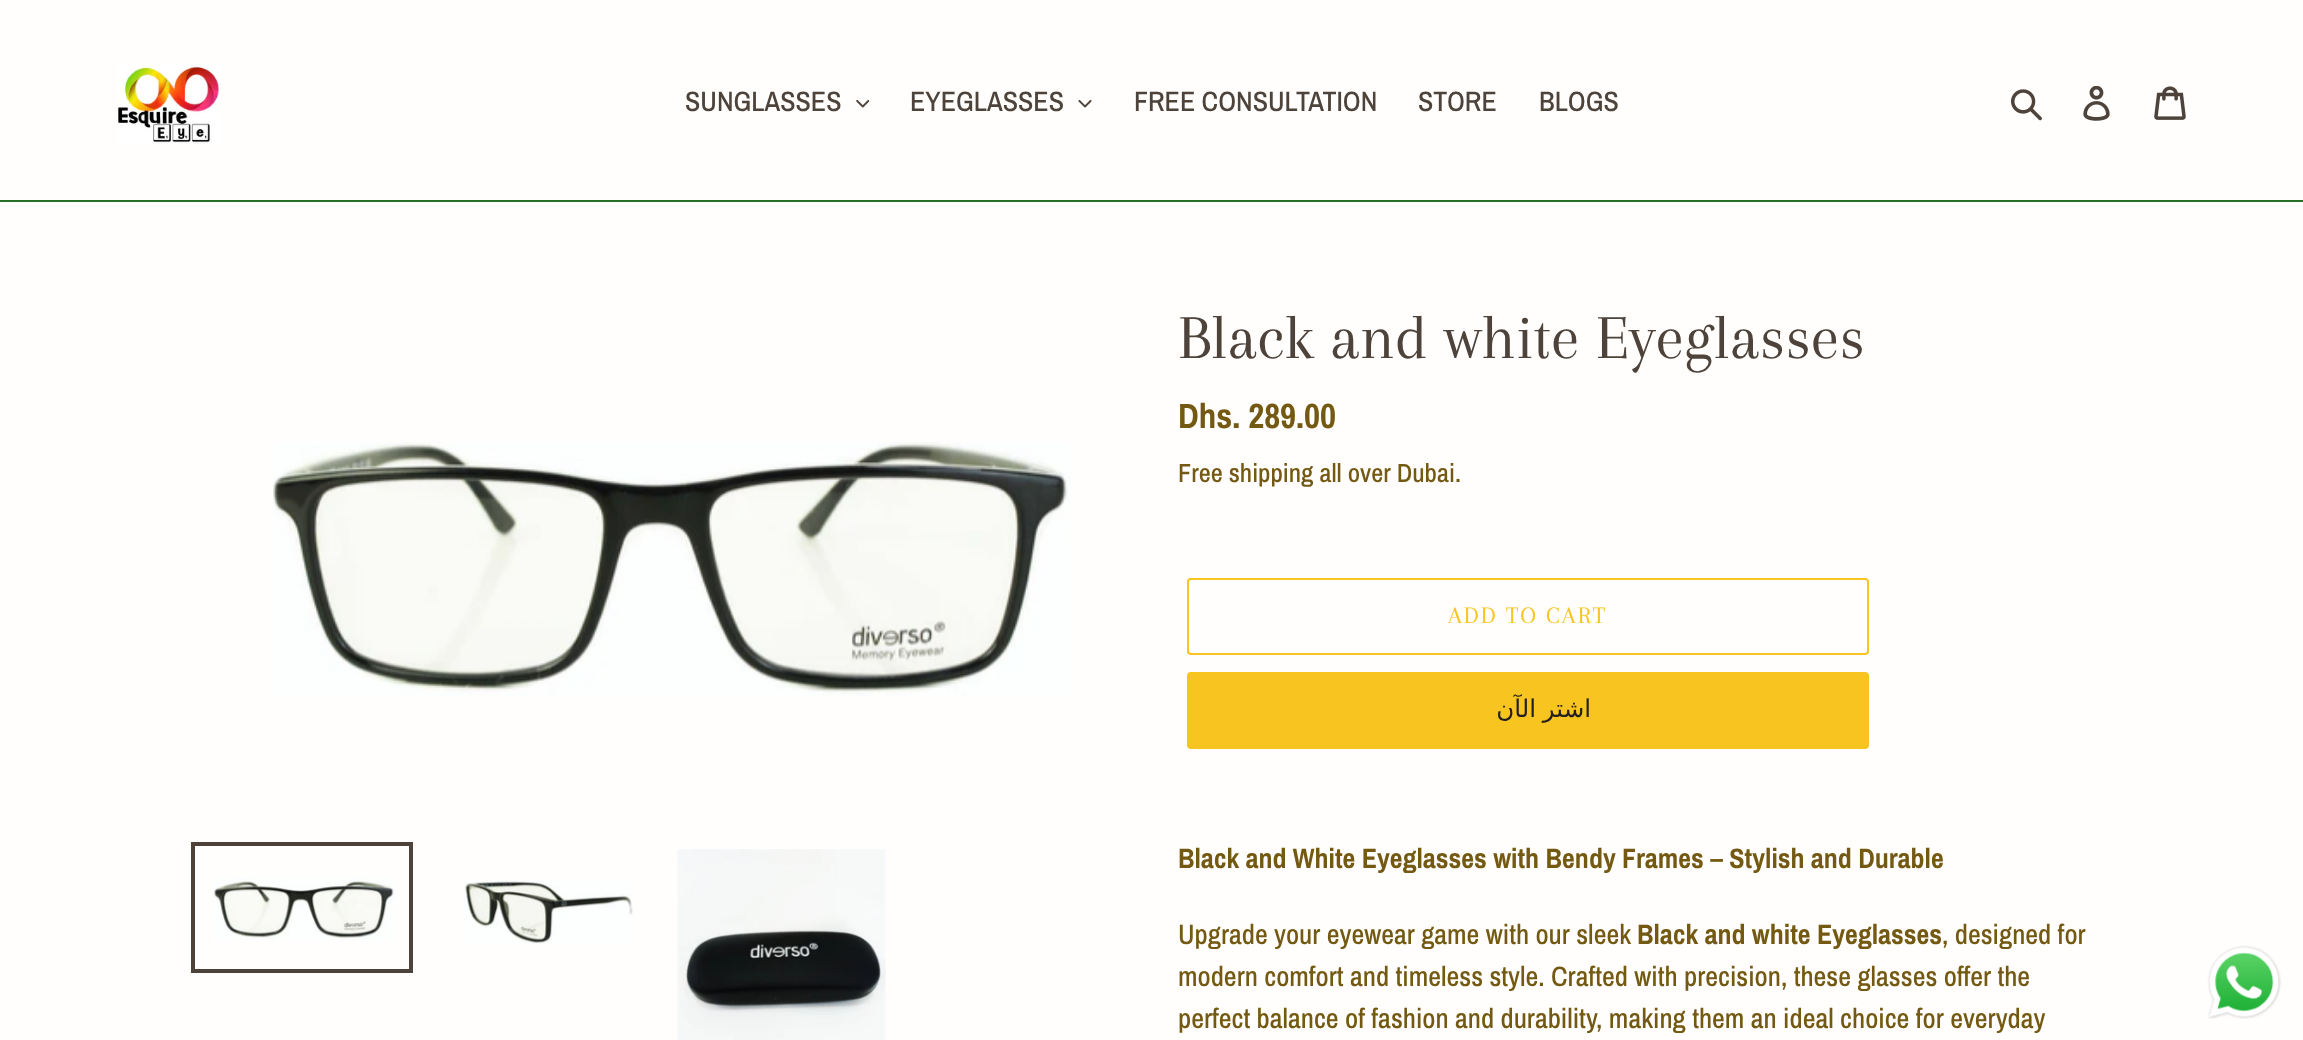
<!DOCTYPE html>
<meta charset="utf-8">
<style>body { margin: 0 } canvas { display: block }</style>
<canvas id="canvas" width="2303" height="1040"></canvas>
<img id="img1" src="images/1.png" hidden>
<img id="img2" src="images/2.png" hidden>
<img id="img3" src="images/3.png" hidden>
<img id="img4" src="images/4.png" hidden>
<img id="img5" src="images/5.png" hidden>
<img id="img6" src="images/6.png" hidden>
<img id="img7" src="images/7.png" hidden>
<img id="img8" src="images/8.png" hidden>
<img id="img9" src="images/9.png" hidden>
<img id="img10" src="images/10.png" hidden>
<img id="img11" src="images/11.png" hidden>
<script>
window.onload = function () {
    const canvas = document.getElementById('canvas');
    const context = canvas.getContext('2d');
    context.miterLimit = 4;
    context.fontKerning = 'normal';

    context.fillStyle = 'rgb(255, 254, 253)';
    context.fillRect(0, 0, 2303, 1040);
    context.fillStyle = 'rgb(39, 112, 39)';
    context.fillRect(0, 200, 2303, 2);
    context.drawImage(document.getElementById('img1'), 118, 63, 103, 81);
    context.drawImage(document.getElementById('img2'), 856, 100, 14, 8);
    context.drawImage(document.getElementById('img3'), 1078, 100, 14, 8);
    context.drawImage(document.getElementById('img4'), 2011, 89, 31, 32);
    context.drawImage(document.getElementById('img5'), 2083, 86, 27, 35);
    context.drawImage(document.getElementById('img6'), 2154, 86, 32, 34);
    context.drawImage(document.getElementById('img7'), 273, 442, 798, 254);
    context.strokeStyle = 'rgb(77, 67, 58)';
    context.lineWidth = 4;
    context.strokeRect(193, 844, 218, 127);
    context.drawImage(document.getElementById('img8'), 213, 877, 183, 64);
    context.drawImage(document.getElementById('img9'), 463, 879, 170, 65);
    context.drawImage(document.getElementById('img10'), 677, 849, 209, 191);
    context.beginPath();
    context.roundRect(1188, 579, 680, 75, 3);
    context.strokeStyle = 'rgb(247, 196, 32)';
    context.lineWidth = 2;
    context.stroke();
    context.fillStyle = 'rgb(247, 196, 32)';
    context.beginPath();
    context.roundRect(1187, 672, 682, 77, 4);
    context.fill();
    context.drawImage(document.getElementById('img11'), 2207, 945, 75, 74);
    context.font = '500 28px Archivo Narrow';
    context.fillStyle = 'rgb(77, 67, 58)';
    context.fillText('SUNGLASSES', 685, 111);
    context.fillText('EYEGLASSES', 910, 111);
    context.fillText('FREE CONSULTATION', 1134, 111);
    context.fillText('STORE', 1418, 111);
    context.fillText('BLOGS', 1539, 111);
    context.font = '64.75px Arapey';
    context.fillText('Black and white Eyeglasses', 1178, 358);
    context.font = 'bold 35px Archivo Narrow';
    context.fillStyle = 'rgb(115, 89, 17)';
    context.fillText('Dhs. 289.00', 1178, 428);
    context.font = '500 26.25px Archivo Narrow';
    context.fillText('Free shipping all over Dubai.', 1178, 482);
    context.letterSpacing = '2px';
    context.font = '24.5px Arapey';
    context.fillStyle = 'rgb(247, 196, 32)';
    context.fillText('ADD TO CART', 1448, 623);
    context.wordSpacing = '-3px';
    context.direction = 'rtl';
    context.font = '24.5px DejaVu Sans';
    context.fillStyle = 'rgb(33, 31, 31)';
    context.fillText('اشتر الآن', 1591, 717);
    context.letterSpacing = '0px';
    context.wordSpacing = '0px';
    context.direction = 'ltr';
    context.font = 'bold 28px Archivo Narrow';
    context.fillStyle = 'rgb(115, 89, 17)';
    context.fillText('Black and White Eyeglasses with Bendy Frames – Stylish and Durable', 1178, 868);
    context.font = '500 28px Archivo Narrow';
    context.fillText('Upgrade your eyewear game with our sleek', 1178, 944);
    context.font = 'bold 28px Archivo Narrow';
    context.fillText('Black and white Eyeglasses', 1637, 944);
    context.font = '500 28px Archivo Narrow';
    context.fillText(', designed for', 1942, 944);
    context.fillText('modern comfort and timeless style. Crafted with precision, these glasses offer the', 1178, 986);
    context.fillText('perfect balance of fashion and durability, making them an ideal choice for everyday', 1178, 1028);
};
</script>
